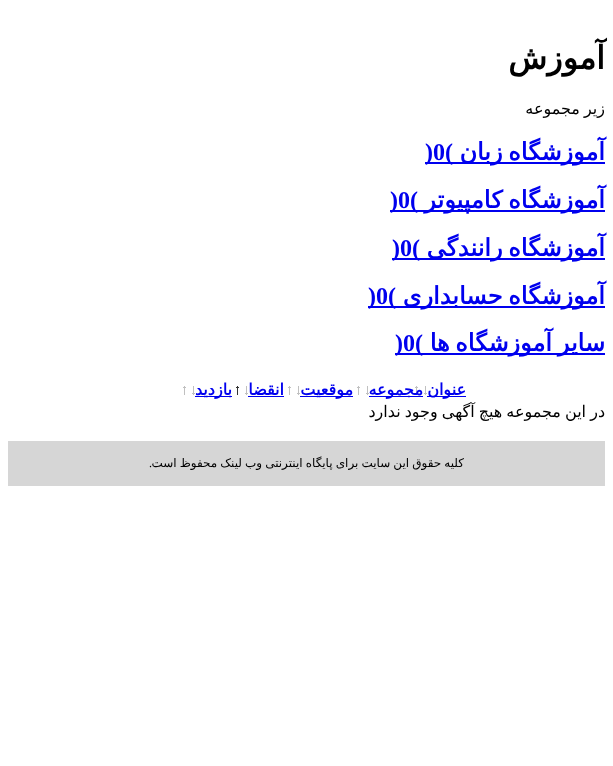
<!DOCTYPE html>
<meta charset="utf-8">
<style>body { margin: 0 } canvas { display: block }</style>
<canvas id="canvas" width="613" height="766"></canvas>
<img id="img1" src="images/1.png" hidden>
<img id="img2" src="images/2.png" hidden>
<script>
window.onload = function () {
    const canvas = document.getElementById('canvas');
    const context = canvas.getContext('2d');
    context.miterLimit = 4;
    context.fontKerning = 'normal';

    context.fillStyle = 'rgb(255, 255, 255)';
    context.fillRect(0, 0, 613, 766);
    context.fillStyle = 'rgb(0, 0, 238)';
    context.fillRect(453, 162, 152, 2);
    context.fillRect(425, 162, 28, 2);
    context.fillRect(418, 210, 187, 2);
    context.fillRect(390, 210, 28, 2);
    context.fillRect(420, 258, 185, 2);
    context.fillRect(392, 258, 28, 2);
    context.fillRect(396, 306, 209, 2);
    context.fillRect(368, 306, 28, 2);
    context.fillRect(423, 353, 182, 2);
    context.fillRect(395, 353, 28, 2);
    context.fillRect(427, 396, 39, 1);
    context.drawImage(document.getElementById('img1'), 415, 386, 12, 9);
    context.fillRect(369, 396, 54, 1);
    context.drawImage(document.getElementById('img1'), 357, 386, 12, 9);
    context.fillRect(300, 396, 53, 1);
    context.drawImage(document.getElementById('img1'), 288, 386, 12, 9);
    context.fillRect(248, 396, 36, 1);
    context.drawImage(document.getElementById('img2'), 236, 386, 12, 9);
    context.fillRect(195, 396, 37, 1);
    context.drawImage(document.getElementById('img1'), 183, 386, 12, 9);
    context.fillStyle = 'rgb(214, 214, 214)';
    context.fillRect(8, 441, 597, 45);
    context.direction = 'rtl';
    context.font = 'bold 32px DejaVu Sans';
    context.fillStyle = 'rgb(0, 0, 0)';
    context.fillText('آموزش', 605, 69);
    context.wordSpacing = '-1px';
    context.font = '16px DejaVu Sans';
    context.fillText('زیر مجموعه', 605, 114);
    context.wordSpacing = '-2px';
    context.font = 'bold 24px DejaVu Sans';
    context.fillStyle = 'rgb(0, 0, 238)';
    context.fillText('آموزشگاه زبان', 605, 160);
    context.wordSpacing = '0px';
    context.direction = 'ltr';
    context.font = 'bold 24px Liberation Serif';
    context.fillText(')0(', 425, 160);
    context.wordSpacing = '-2px';
    context.direction = 'rtl';
    context.font = 'bold 24px DejaVu Sans';
    context.fillText('آموزشگاه کامپیوتر', 605, 208);
    context.wordSpacing = '0px';
    context.direction = 'ltr';
    context.font = 'bold 24px Liberation Serif';
    context.fillText(')0(', 390, 208);
    context.wordSpacing = '-2px';
    context.direction = 'rtl';
    context.font = 'bold 24px DejaVu Sans';
    context.fillText('آموزشگاه رانندگی', 605, 256);
    context.wordSpacing = '0px';
    context.direction = 'ltr';
    context.font = 'bold 24px Liberation Serif';
    context.fillText(')0(', 392, 256);
    context.wordSpacing = '-2px';
    context.direction = 'rtl';
    context.font = 'bold 24px DejaVu Sans';
    context.fillText('آموزشگاه حسابداری', 605, 304);
    context.wordSpacing = '0px';
    context.direction = 'ltr';
    context.font = 'bold 24px Liberation Serif';
    context.fillText(')0(', 368, 304);
    context.wordSpacing = '-2px';
    context.direction = 'rtl';
    context.font = 'bold 24px DejaVu Sans';
    context.fillText('سایر آموزشگاه ها', 605, 351);
    context.wordSpacing = '0px';
    context.direction = 'ltr';
    context.font = 'bold 24px Liberation Serif';
    context.fillText(')0(', 395, 351);
    context.direction = 'rtl';
    context.font = 'bold 16px DejaVu Sans';
    context.fillText('عنوان', 466, 395);
    context.fillText('مجموعه', 423, 395);
    context.fillText('موقعیت', 353, 395);
    context.fillText('انقضا', 284, 395);
    context.fillText('بازدید', 232, 395);
    context.wordSpacing = '-1px';
    context.font = '16px DejaVu Sans';
    context.fillStyle = 'rgb(0, 0, 0)';
    context.fillText('در این مجموعه هیچ آگهی وجود ندارد', 605, 417);
    context.wordSpacing = '-0.75px';
    context.font = '12px DejaVu Sans';
    context.fillText('کلیه حقوق این سایت برای پایگاه اینترنتی وب لینک محفوظ است', 464, 467);
    context.wordSpacing = '0px';
    context.font = '12px Liberation Serif';
    context.fillText('.', 152, 467);
};
</script>
